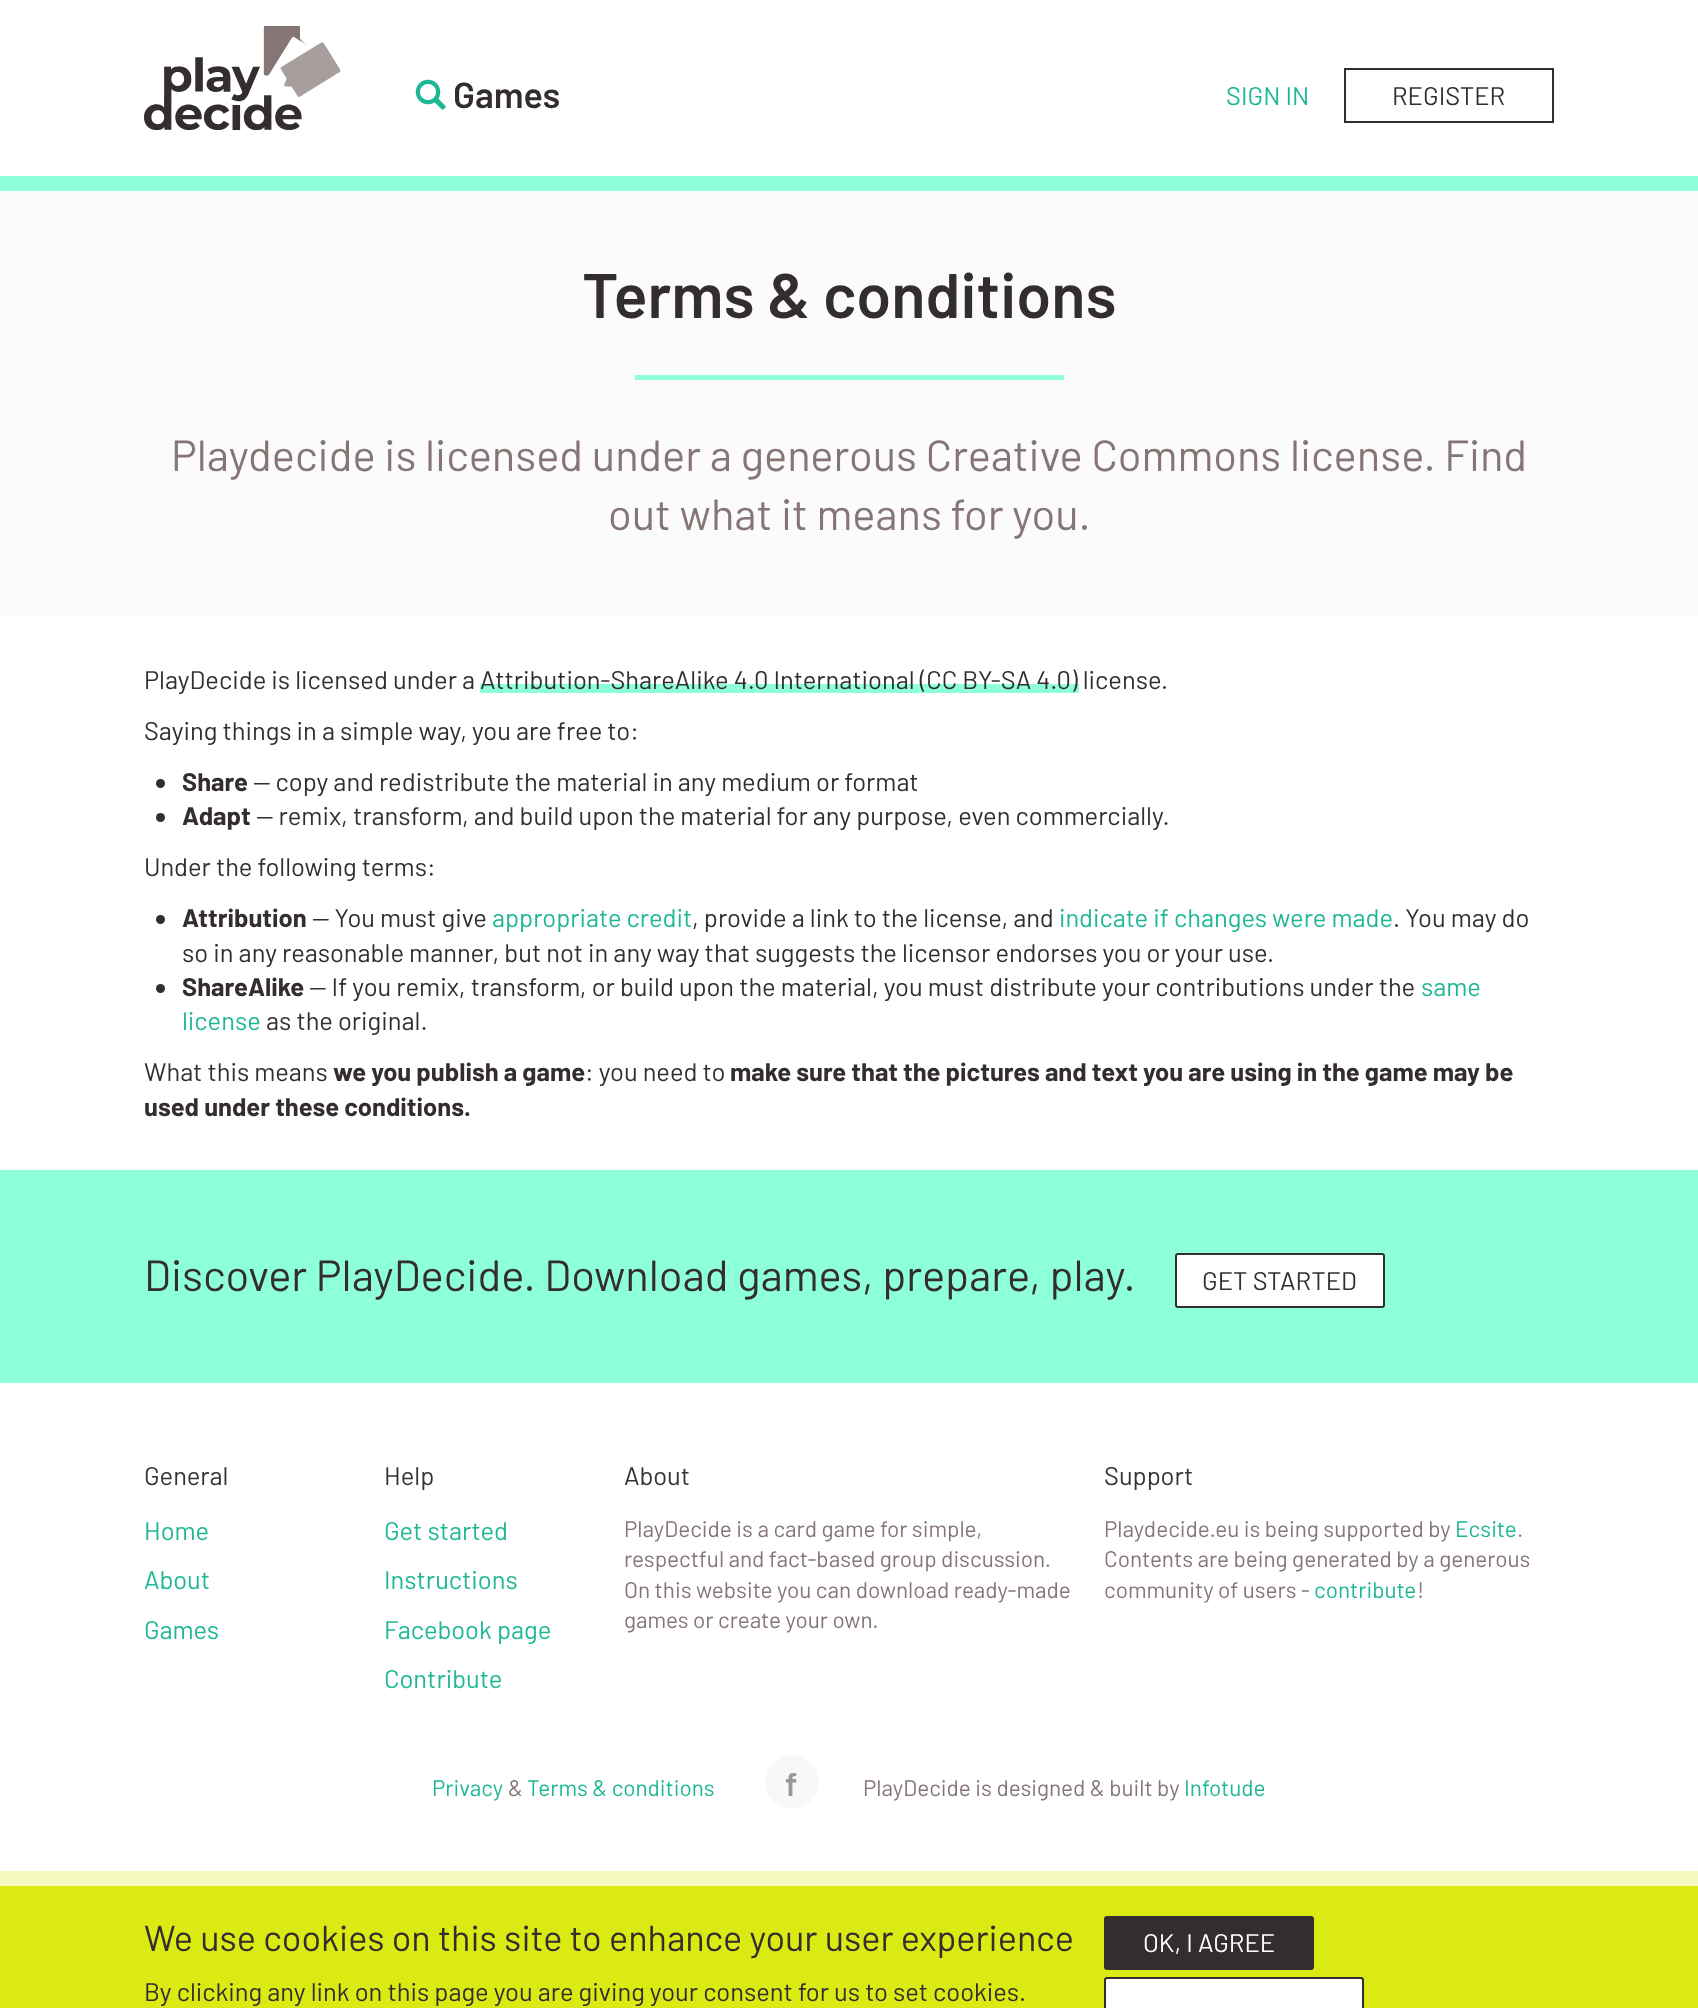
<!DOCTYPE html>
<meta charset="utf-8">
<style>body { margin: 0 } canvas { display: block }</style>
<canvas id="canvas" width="1698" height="2008"></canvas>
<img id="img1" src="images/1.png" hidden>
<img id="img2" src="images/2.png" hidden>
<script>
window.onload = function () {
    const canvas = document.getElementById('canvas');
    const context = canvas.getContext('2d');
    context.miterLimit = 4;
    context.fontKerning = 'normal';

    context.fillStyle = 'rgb(255, 255, 255)';
    context.fillRect(0, 0, 1698, 2008);
    context.fillStyle = 'rgb(142, 255, 219)';
    context.fillRect(0, 176, 1698, 15);
    context.drawImage(document.getElementById('img1'), 144, 26, 197, 105);
    context.drawImage(document.getElementById('img2'), 415, 79, 31, 31);
    context.strokeStyle = 'rgb(51, 45, 47)';
    context.lineWidth = 2;
    context.strokeRect(1345, 69, 208, 53);
    context.fillStyle = 'rgb(251, 251, 251)';
    context.fillRect(0, 192, 1698, 425);
    context.fillStyle = 'rgb(142, 255, 219)';
    context.fillRect(635, 375, 429, 5);
    context.fillRect(480, 684, 599, 9);
    context.fillStyle = 'rgb(51, 45, 47)';
    context.beginPath();
    context.arc(160.5, 783.5, 4.5, 0, 2 * Math.PI);
    context.fill();
    context.beginPath();
    context.arc(160.5, 817.5, 4.5, 0, 2 * Math.PI);
    context.fill();
    context.beginPath();
    context.arc(160.5, 919.5, 4.5, 0, 2 * Math.PI);
    context.fill();
    context.beginPath();
    context.arc(160.5, 988.5, 4.5, 0, 2 * Math.PI);
    context.fill();
    context.fillStyle = 'rgb(251, 251, 251)';
    context.fillRect(0, 1169, 1698, 1);
    context.fillStyle = 'rgb(142, 255, 219)';
    context.fillRect(0, 1170, 1698, 213);
    context.fillStyle = 'rgb(255, 255, 255)';
    context.fillRect(1177, 1255, 206, 51);
    context.beginPath();
    context.roundRect(1176, 1254, 208, 53, 2);
    context.stroke();
    context.fillStyle = 'rgb(248, 248, 248)';
    context.beginPath();
    context.arc(792, 1782, 27, 0, 2 * Math.PI);
    context.fill();
    context.fillStyle = 'rgb(219, 234, 19)';
    context.fillRect(0, 1886, 1698, 122);
    context.fillStyle = 'rgb(244, 249, 191)';
    context.fillRect(0, 1871, 1698, 15);
    context.fillStyle = 'rgb(51, 45, 47)';
    context.beginPath();
    context.roundRect(1105, 1917, 208, 52, 2);
    context.fill();
    context.stroke();
    context.fillStyle = 'rgb(255, 255, 255)';
    context.beginPath();
    context.roundRect(1106, 1979, 256, 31, 1.5);
    context.fill();
    context.beginPath();
    context.roundRect(1105, 1978, 258, 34, 2);
    context.stroke();
    context.font = '600 36px Barlow';
    context.fillStyle = 'rgb(51, 45, 47)';
    context.fillText('Games', 453, 108);
    context.font = '25.5px Barlow';
    context.fillStyle = 'rgb(30, 183, 148)';
    context.fillText('SIGN IN', 1226, 105);
    context.fillStyle = 'rgb(51, 45, 47)';
    context.fillText('REGISTER', 1392, 105);
    context.font = '600 63px Barlow';
    context.fillText('Terms & conditions', 582, 318);
    context.font = '43.5px Barlow';
    context.fillStyle = 'rgb(133, 117, 117)';
    context.fillText('Playdecide is licensed under a generous Creative Commons license. Find', 171, 471);
    context.fillText('out what it means for you.', 608, 530);
    context.font = '25.5px Barlow';
    context.fillStyle = 'rgb(51, 45, 47)';
    context.fillText('PlayDecide is licensed under a', 144, 689);
    context.fillText('Attribution-ShareAlike 4.0 International (CC BY-SA 4.0) license.', 480, 689);
    context.fillText('Saying things in a simple way, you are free to:', 144, 740);
    context.font = 'bold 25.5px Barlow';
    context.fillText('Share', 182, 791);
    context.font = '25.5px Barlow';
    context.fillText('— copy and redistribute the material in any medium or format', 253, 791);
    context.font = 'bold 25.5px Barlow';
    context.fillText('Adapt', 182, 825);
    context.font = '25.5px Barlow';
    context.fillText('— remix, transform, and build upon the material for any purpose, even commercially.', 256, 825);
    context.fillText('Under the following terms:', 144, 876);
    context.font = 'bold 25.5px Barlow';
    context.fillText('Attribution', 182, 927);
    context.font = '25.5px Barlow';
    context.fillText('— You must give', 312, 927);
    context.fillStyle = 'rgb(30, 183, 148)';
    context.fillText('appropriate credit', 492, 927);
    context.fillStyle = 'rgb(51, 45, 47)';
    context.fillText(', provide a link to the license, and', 692, 927);
    context.fillStyle = 'rgb(30, 183, 148)';
    context.fillText('indicate if changes were made', 1059, 927);
    context.fillStyle = 'rgb(51, 45, 47)';
    context.fillText('. You may do', 1393, 927);
    context.fillText('so in any reasonable manner, but not in any way that suggests the licensor endorses you or your use.', 182, 962);
    context.font = 'bold 25.5px Barlow';
    context.fillText('ShareAlike', 182, 996);
    context.font = '25.5px Barlow';
    context.fillText('— If you remix, transform, or build upon the material, you must distribute your contributions under the', 309, 996);
    context.fillStyle = 'rgb(30, 183, 148)';
    context.fillText('same', 1421, 996);
    context.fillText('license', 182, 1030);
    context.fillStyle = 'rgb(51, 45, 47)';
    context.fillText('as the original.', 266, 1030);
    context.fillText('What this means', 144, 1081);
    context.font = 'bold 25.5px Barlow';
    context.fillText('we you publish a game', 333, 1081);
    context.font = '25.5px Barlow';
    context.fillText(': you need to', 585, 1081);
    context.font = 'bold 25.5px Barlow';
    context.fillText('make sure that the pictures and text you are using in the game may be', 730, 1081);
    context.fillText('used under these conditions.', 144, 1116);
    context.font = '43.5px Barlow';
    context.fillText('Discover PlayDecide. Download games, prepare, play.', 144, 1291);
    context.font = '25.5px Barlow';
    context.fillText('GET STARTED', 1202, 1290);
    context.fillStyle = 'rgb(51, 51, 51)';
    context.fillText('General', 144, 1485);
    context.fillStyle = 'rgb(30, 183, 148)';
    context.fillText('Home', 144, 1540);
    context.fillText('About', 144, 1589);
    context.fillText('Games', 144, 1639);
    context.fillStyle = 'rgb(51, 51, 51)';
    context.fillText('Help', 384, 1485);
    context.fillStyle = 'rgb(30, 183, 148)';
    context.fillText('Get started', 384, 1540);
    context.fillText('Instructions', 384, 1589);
    context.fillText('Facebook page', 384, 1639);
    context.fillText('Contribute', 384, 1688);
    context.fillStyle = 'rgb(51, 51, 51)';
    context.fillText('About', 624, 1485);
    context.font = '22.5px Barlow';
    context.fillStyle = 'rgb(133, 117, 117)';
    context.fillText('PlayDecide is a card game for simple,', 624, 1537);
    context.fillText('respectful and fact-based group discussion.', 624, 1567);
    context.fillText('On this website you can download ready-made', 624, 1598);
    context.fillText('games or create your own.', 624, 1628);
    context.font = '25.5px Barlow';
    context.fillStyle = 'rgb(51, 51, 51)';
    context.fillText('Support', 1104, 1485);
    context.font = '22.5px Barlow';
    context.fillStyle = 'rgb(133, 117, 117)';
    context.fillText('Playdecide.eu is being supported by', 1104, 1537);
    context.fillStyle = 'rgb(30, 183, 148)';
    context.fillText('Ecsite', 1455, 1537);
    context.fillStyle = 'rgb(133, 117, 117)';
    context.fillText('.', 1517, 1537);
    context.fillText('Contents are being generated by a generous', 1104, 1567);
    context.fillText('community of users -', 1104, 1598);
    context.fillStyle = 'rgb(30, 183, 148)';
    context.fillText('contribute', 1314, 1598);
    context.fillStyle = 'rgb(133, 117, 117)';
    context.fillText('!', 1417, 1598);
    context.fillStyle = 'rgb(30, 183, 148)';
    context.fillText('Privacy', 432, 1796);
    context.fillStyle = 'rgb(133, 117, 117)';
    context.fillText('&', 508, 1796);
    context.fillStyle = 'rgb(30, 183, 148)';
    context.fillText('Terms & conditions', 527, 1796);
    context.font = '600 33px Barlow';
    context.fillStyle = 'rgb(153, 153, 153)';
    context.fillText('f', 785, 1796);
    context.font = '22.5px Barlow';
    context.fillStyle = 'rgb(133, 117, 117)';
    context.fillText('PlayDecide is designed & built by', 863, 1796);
    context.fillStyle = 'rgb(30, 183, 148)';
    context.fillText('Infotude', 1184, 1796);
    context.font = '36px Barlow';
    context.fillStyle = 'rgb(51, 45, 47)';
    context.fillText('We use cookies on this site to enhance your user experience', 144, 1951);
    context.font = '25.5px Barlow';
    context.fillText('By clicking any link on this page you are giving your consent for us to set cookies.', 144, 2001);
    context.fillStyle = 'rgb(255, 255, 255)';
    context.fillText('OK, I AGREE', 1143, 1952);
};
</script>
